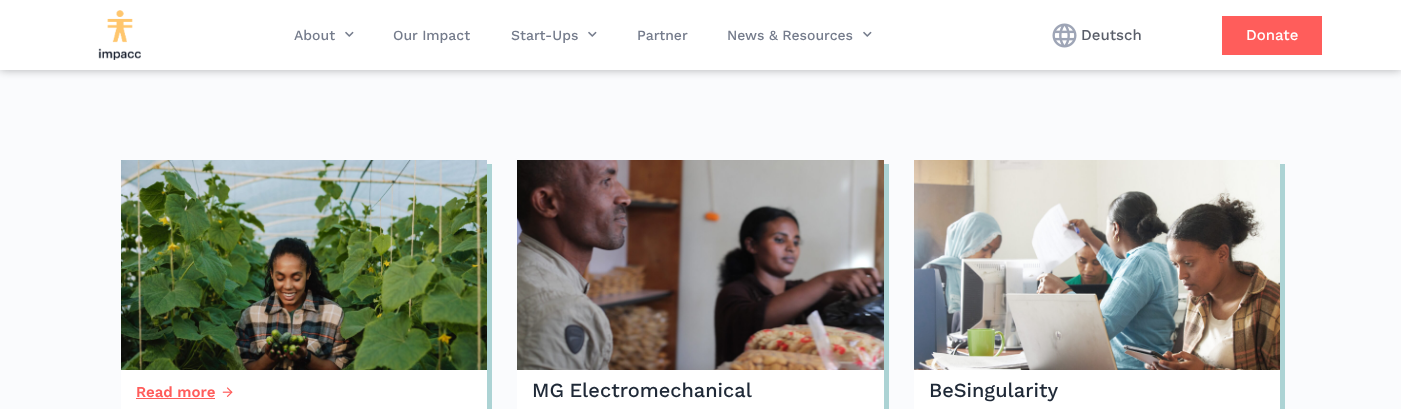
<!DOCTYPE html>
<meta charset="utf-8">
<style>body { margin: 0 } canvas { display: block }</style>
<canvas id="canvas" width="1401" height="409"></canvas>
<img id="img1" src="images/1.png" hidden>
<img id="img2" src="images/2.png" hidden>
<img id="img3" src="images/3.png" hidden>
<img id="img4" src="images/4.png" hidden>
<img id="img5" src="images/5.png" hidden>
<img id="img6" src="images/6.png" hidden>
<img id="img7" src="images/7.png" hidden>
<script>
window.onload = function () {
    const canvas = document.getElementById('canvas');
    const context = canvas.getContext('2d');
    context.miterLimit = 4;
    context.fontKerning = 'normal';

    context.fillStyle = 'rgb(250, 251, 253)';
    context.fillRect(0, 0, 1401, 409);
    context.fillStyle = 'rgba(0, 0, 0, 0.3)';
    context.filter = 'blur(5px)';
    context.beginPath();
    context.rect(0, 0, 1401, 70);
    context.fill();
    context.filter = 'none';
    context.fillStyle = 'rgb(255, 255, 255)';
    context.fillRect(0, 0, 1401, 70);
    context.drawImage(document.getElementById('img1'), 98, 10, 43, 50);
    context.drawImage(document.getElementById('img2'), 345, 31, 9, 6);
    context.drawImage(document.getElementById('img2'), 588, 31, 9, 6);
    context.drawImage(document.getElementById('img2'), 863, 31, 9, 6);
    context.drawImage(document.getElementById('img3'), 1052, 23, 25, 25);
    context.fillStyle = 'rgb(255, 93, 91)';
    context.fillRect(1222, 16, 100, 39);
    context.fillStyle = 'rgb(172, 211, 212)';
    context.beginPath();
    context.moveTo(126, 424);
    context.lineTo(126, 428);
    context.lineTo(492, 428);
    context.lineTo(492, 164);
    context.lineTo(487, 164);
    context.lineTo(487, 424);
    context.closePath();
    context.fill();
    context.fillStyle = 'rgb(255, 255, 255)';
    context.fillRect(121, 370, 366, 39);
    context.drawImage(document.getElementById('img4'), 121, 160, 366, 210);
    context.fillStyle = 'rgb(255, 93, 91)';
    context.fillRect(136, 398, 79, 1);
    context.drawImage(document.getElementById('img5'), 222, 387, 11, 10);
    context.fillStyle = 'rgb(172, 211, 212)';
    context.beginPath();
    context.moveTo(522, 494);
    context.lineTo(522, 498);
    context.lineTo(889, 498);
    context.lineTo(889, 164);
    context.lineTo(884, 164);
    context.lineTo(884, 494);
    context.closePath();
    context.fill();
    context.fillStyle = 'rgb(255, 255, 255)';
    context.fillRect(517, 370, 367, 39);
    context.drawImage(document.getElementById('img6'), 517, 160, 367, 210);
    context.fillStyle = 'rgb(172, 211, 212)';
    context.beginPath();
    context.moveTo(919, 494);
    context.lineTo(919, 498);
    context.lineTo(1285, 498);
    context.lineTo(1285, 164);
    context.lineTo(1280, 164);
    context.lineTo(1280, 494);
    context.closePath();
    context.fill();
    context.fillStyle = 'rgb(255, 255, 255)';
    context.fillRect(914, 370, 366, 39);
    context.drawImage(document.getElementById('img7'), 914, 160, 366, 210);
    context.font = '500 14px Work Sans';
    context.fillStyle = 'rgb(117, 124, 140)';
    context.fillText('About', 294, 40);
    context.fillText('Our Impact', 393, 40);
    context.fillText('Start-Ups', 511, 40);
    context.fillText('Partner', 637, 40);
    context.fillText('News & Resources', 727, 40);
    context.font = '500 15px Work Sans';
    context.fillStyle = 'rgb(89, 94, 105)';
    context.fillText('Deutsch', 1081, 40);
    context.fillStyle = 'rgb(255, 255, 255)';
    context.fillText('Donate', 1246, 40);
    context.font = '600 15px Work Sans';
    context.fillStyle = 'rgb(255, 93, 91)';
    context.fillText('Read more', 136, 397);
    context.wordSpacing = '-1px';
    context.font = '500 20px Work Sans';
    context.fillStyle = 'rgb(31, 41, 55)';
    context.fillText('MG Electromechanical', 532, 397);
    context.wordSpacing = '0px';
    context.fillText('BeSingularity', 929, 397);
};
</script>
